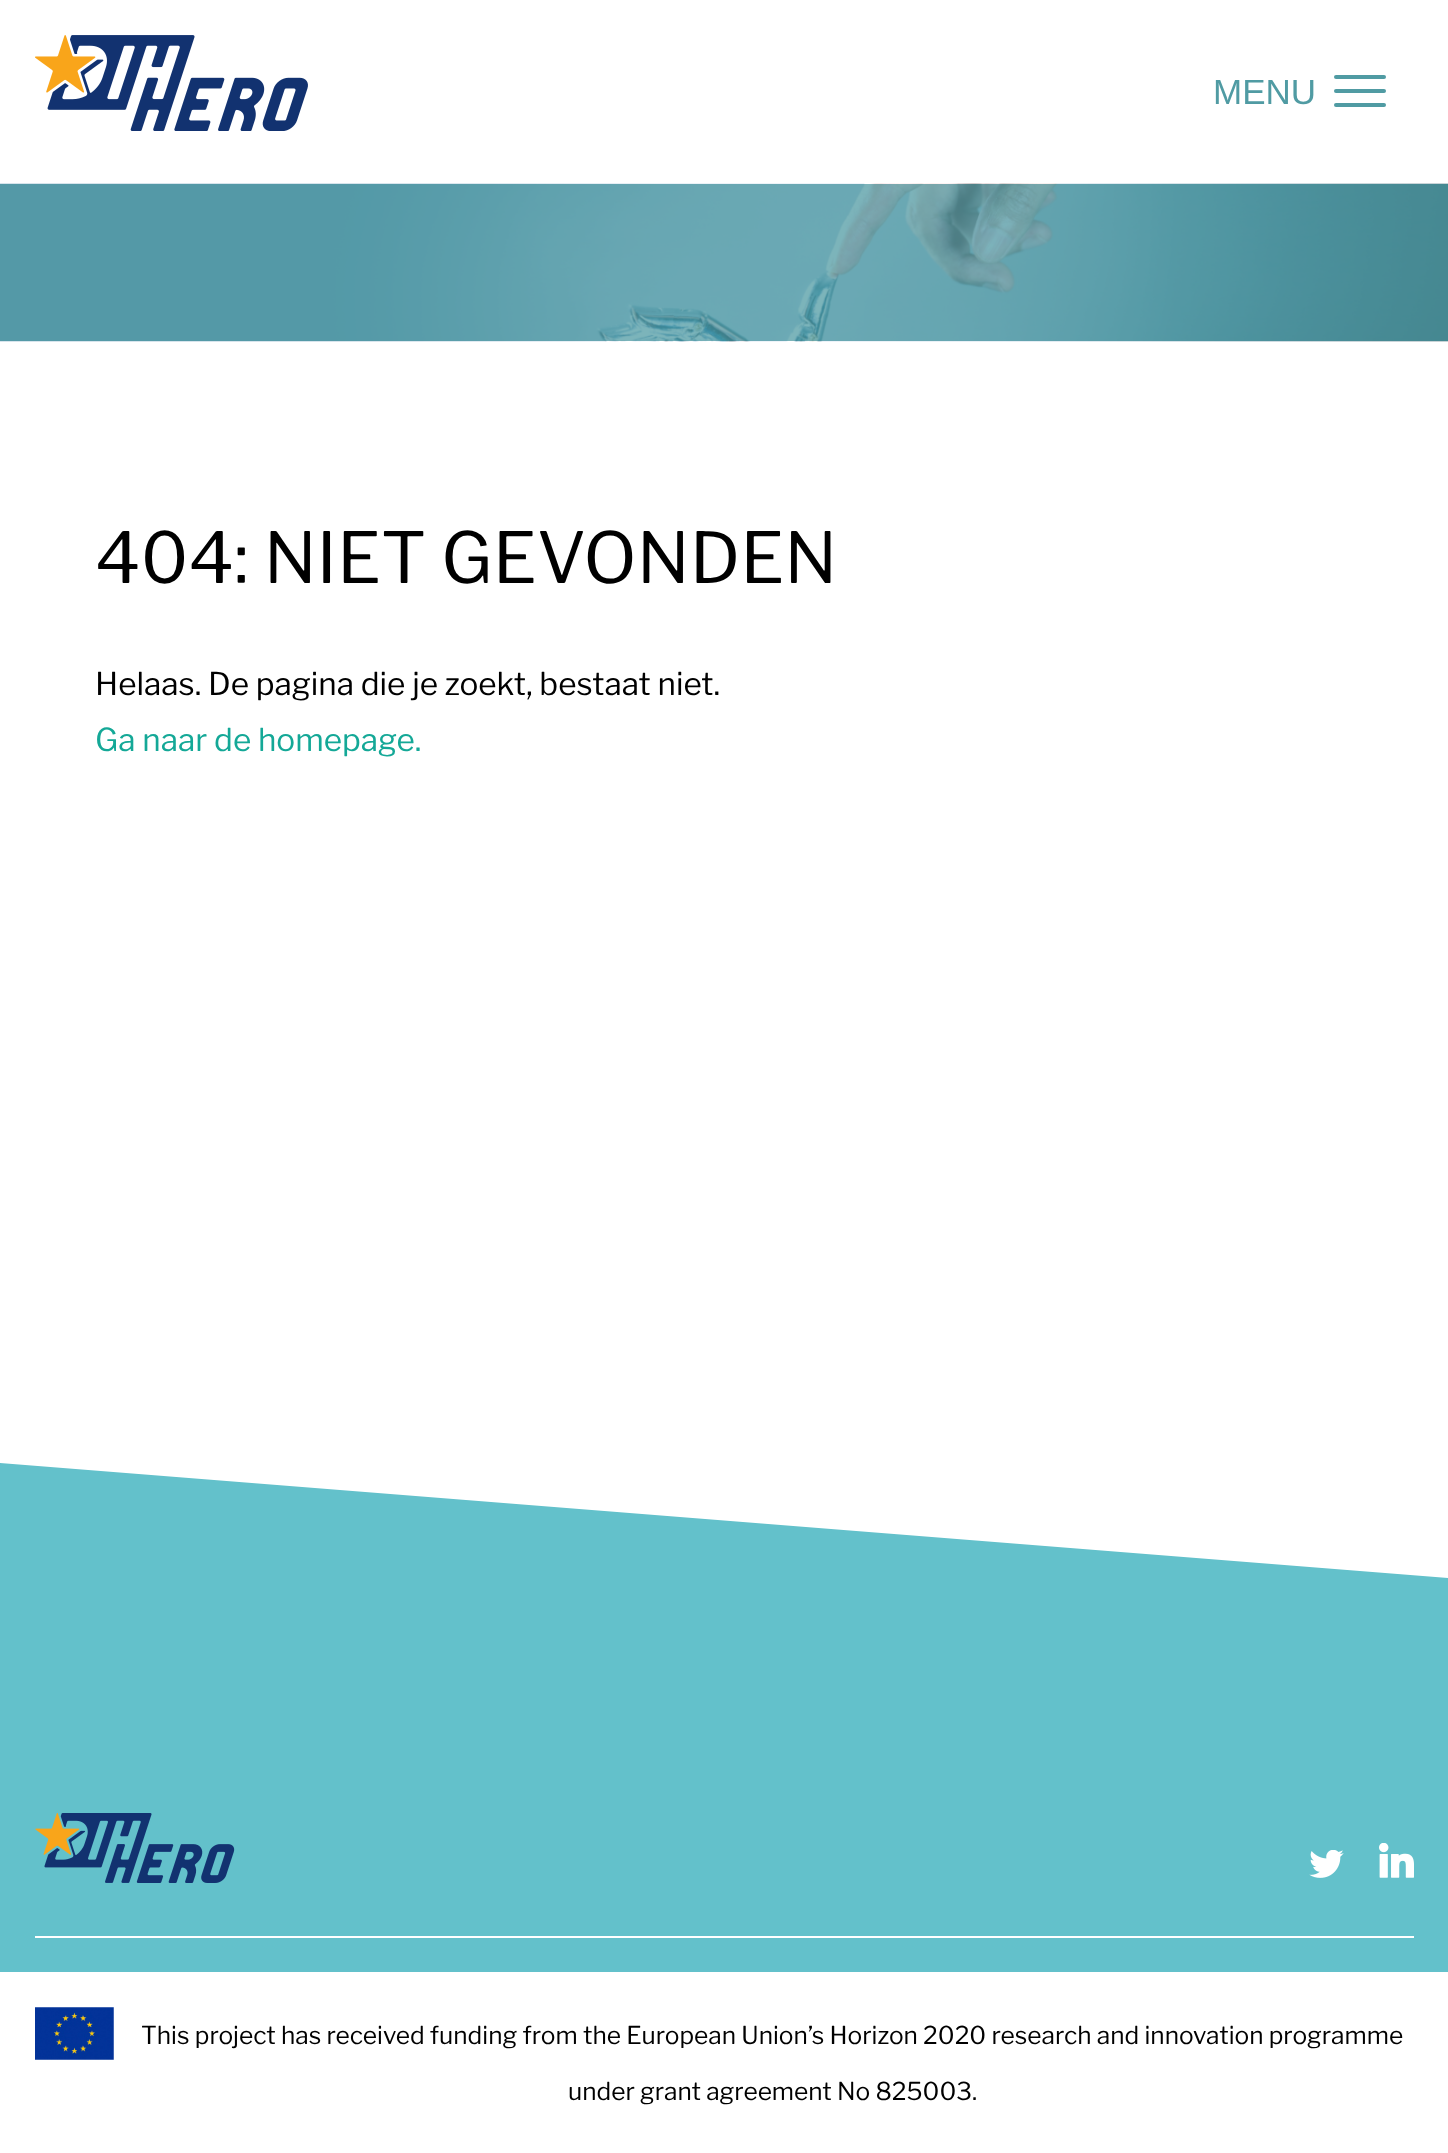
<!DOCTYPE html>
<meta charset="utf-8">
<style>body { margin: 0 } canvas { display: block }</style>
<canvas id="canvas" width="1448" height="2153"></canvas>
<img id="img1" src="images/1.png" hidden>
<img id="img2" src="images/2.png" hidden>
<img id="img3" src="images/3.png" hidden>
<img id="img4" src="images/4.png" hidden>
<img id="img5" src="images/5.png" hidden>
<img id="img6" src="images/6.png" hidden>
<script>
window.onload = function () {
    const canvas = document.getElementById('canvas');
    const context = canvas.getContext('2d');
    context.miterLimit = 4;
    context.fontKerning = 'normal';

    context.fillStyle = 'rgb(255, 255, 255)';
    context.fillRect(0, 0, 1448, 2153);
    context.drawImage(document.getElementById('img1'), 35, 35, 273, 96);
    context.fillStyle = 'rgb(80, 155, 163)';
    context.beginPath();
    context.roundRect(1334, 75, 52, 4, 2);
    context.fill();
    context.beginPath();
    context.roundRect(1334, 89, 52, 4, 2);
    context.fill();
    context.beginPath();
    context.roundRect(1334, 103, 52, 4, 2);
    context.fill();
    context.drawImage(document.getElementById('img2'), 0, 183, 1448, 159);
    context.fillStyle = 'rgb(99, 193, 203)';
    context.fillRect(0, 1463, 1448, 509);
    context.fillStyle = 'rgb(255, 255, 255)';
    context.beginPath();
    context.moveTo(0, 1463);
    context.lineTo(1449, 1463);
    context.lineTo(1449, 1578);
    context.closePath();
    context.fill();
    context.fillRect(35, 1936, 1379, 2);
    context.drawImage(document.getElementById('img3'), 35, 1813, 200, 70);
    context.drawImage(document.getElementById('img4'), 1309, 1850, 35, 28);
    context.drawImage(document.getElementById('img5'), 1379, 1843, 35, 35);
    context.drawImage(document.getElementById('img6'), 35, 2007, 79, 53);
    context.font = '35px Liberation Sans';
    context.fillStyle = 'rgb(80, 155, 163)';
    context.fillText('MENU', 1213, 104);
    context.font = '70px Libre Franklin';
    context.fillStyle = 'rgb(0, 0, 0)';
    context.fillText('404: NIET GEVONDEN', 95, 583);
    context.font = '31.5px Libre Franklin';
    context.fillText('Helaas. De pagina die je zoekt, bestaat niet.', 95, 695);
    context.fillStyle = 'rgb(20, 168, 151)';
    context.fillText('Ga naar de homepage.', 95, 751);
    context.font = '24.5px Libre Franklin';
    context.fillStyle = 'rgb(0, 0, 0)';
    context.fillText('This project has received funding from the European Union’s Horizon 2020 research and innovation programme', 141, 2044);
    context.fillText('under grant agreement No 825003.', 568, 2100);
};
</script>
